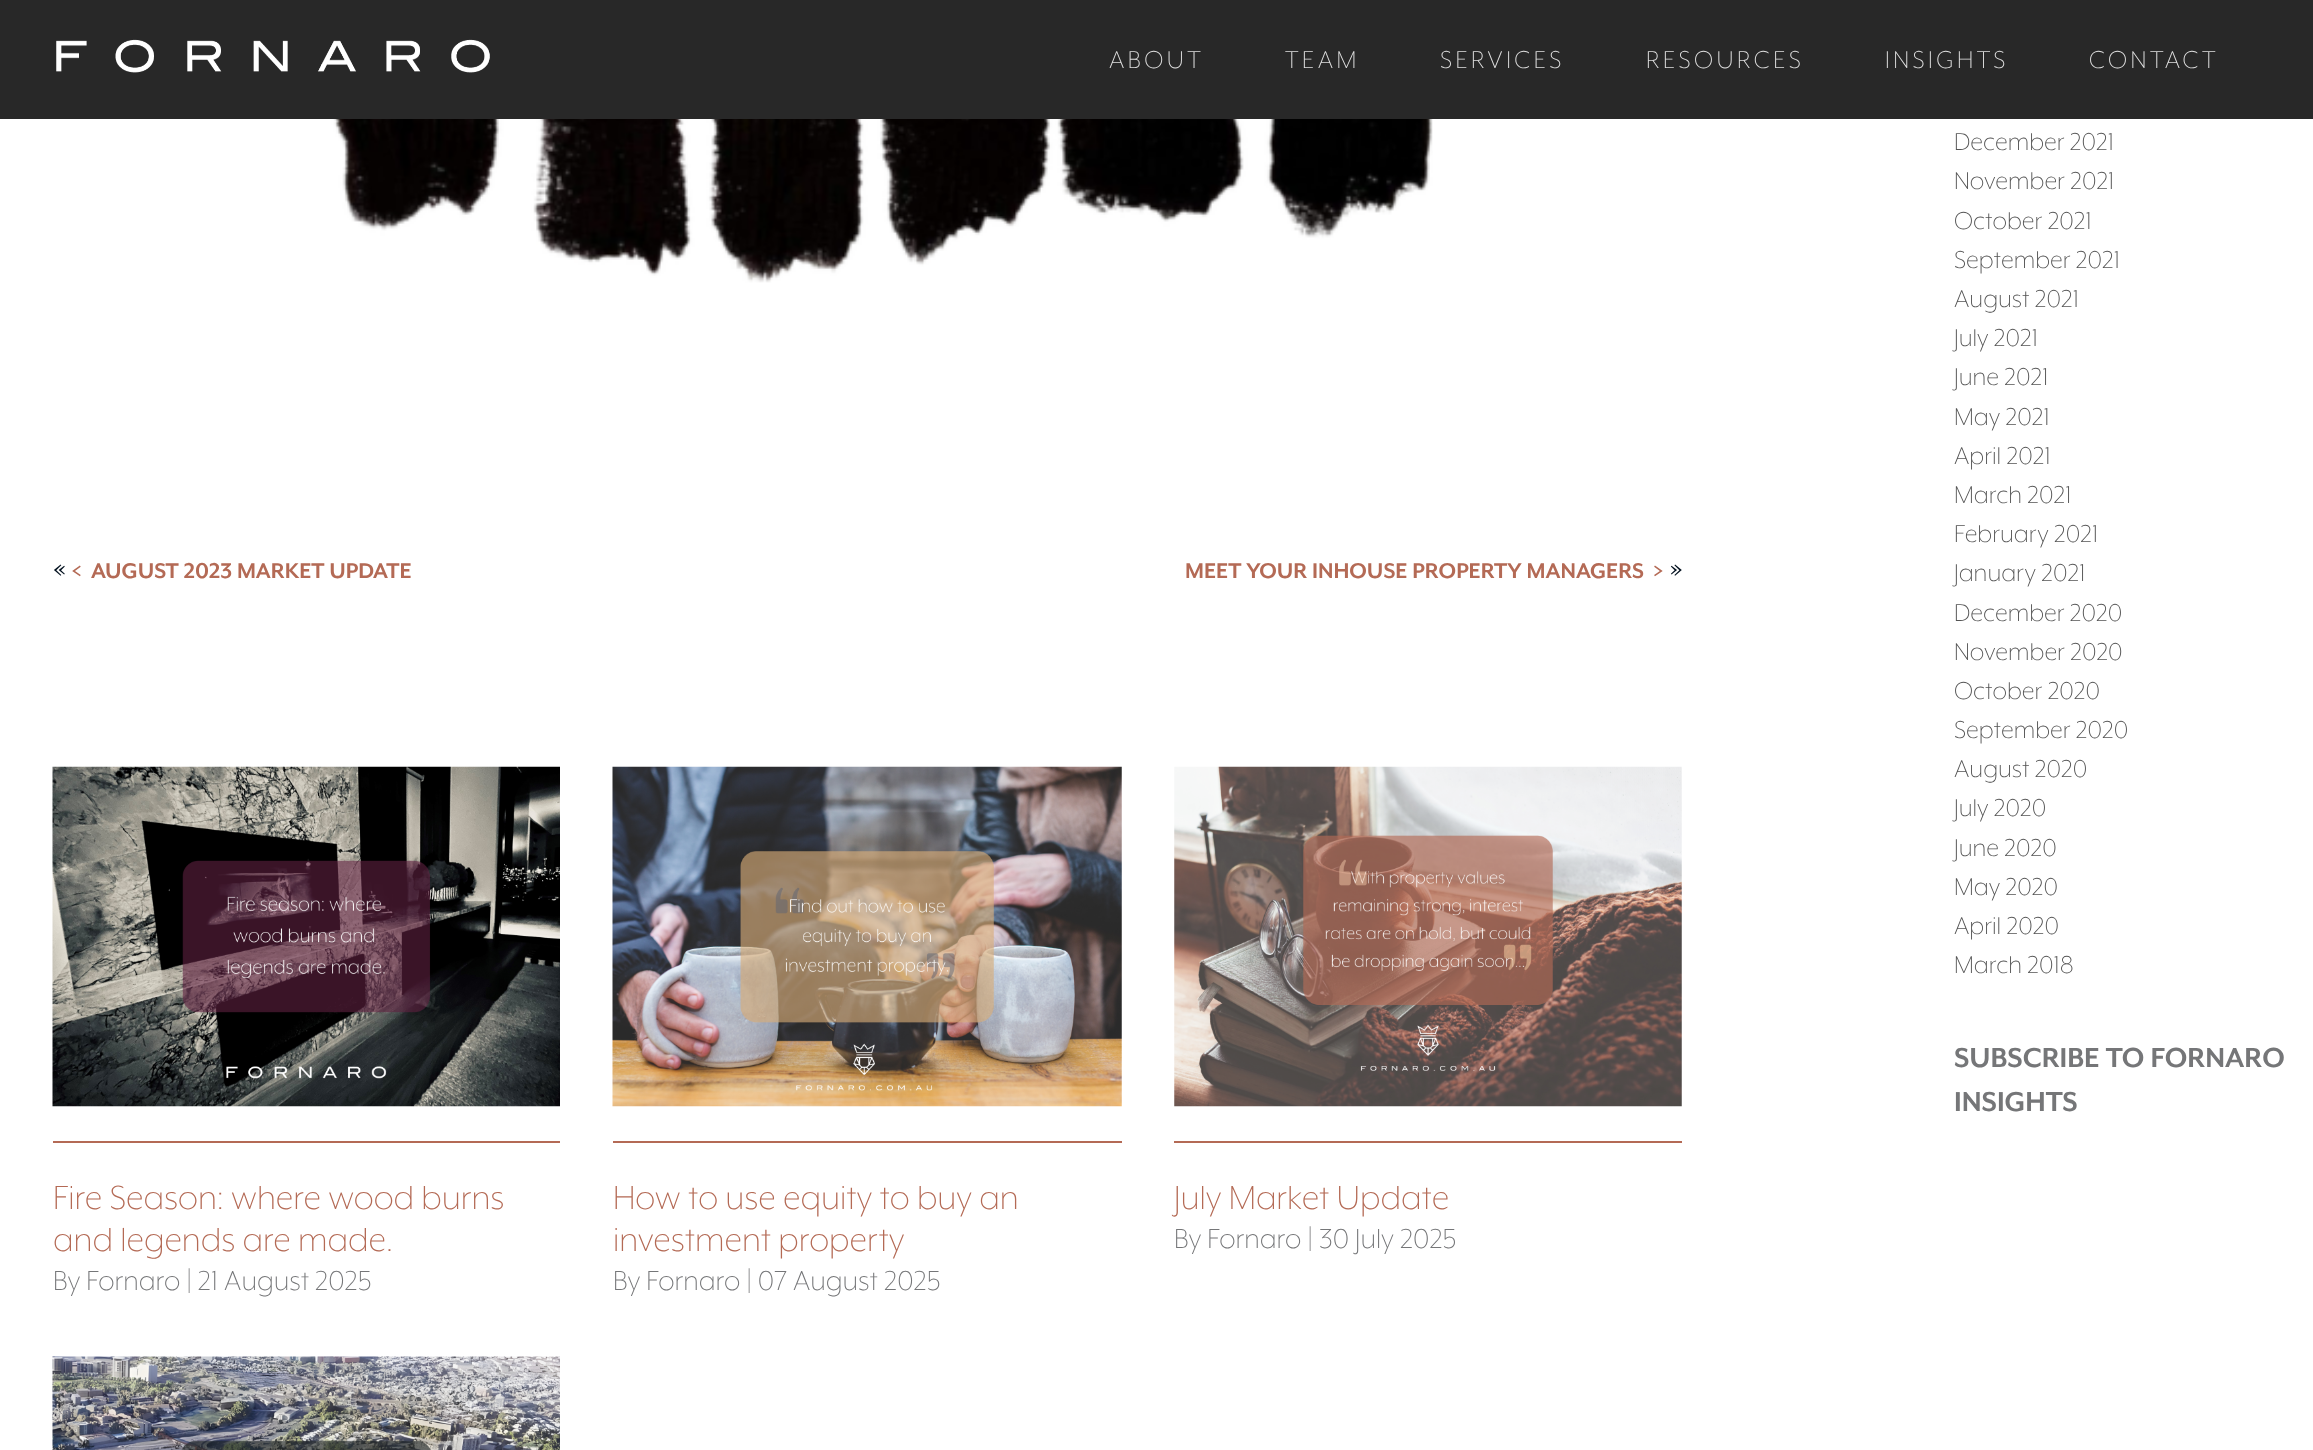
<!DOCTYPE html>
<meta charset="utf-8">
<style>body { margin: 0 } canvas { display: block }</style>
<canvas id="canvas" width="2313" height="1450"></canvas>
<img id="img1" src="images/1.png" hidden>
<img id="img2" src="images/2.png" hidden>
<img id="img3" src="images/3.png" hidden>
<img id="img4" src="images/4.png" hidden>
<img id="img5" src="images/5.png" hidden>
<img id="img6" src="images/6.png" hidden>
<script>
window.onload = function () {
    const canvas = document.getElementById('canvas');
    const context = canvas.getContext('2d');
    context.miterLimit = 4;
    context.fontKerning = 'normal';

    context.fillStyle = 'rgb(255, 255, 255)';
    context.fillRect(0, 0, 2313, 1450);
    context.fillStyle = 'rgb(40, 40, 40)';
    context.fillRect(0, 0, 2313, 119);
    context.drawImage(document.getElementById('img1'), 56, 39, 434, 34);
    context.drawImage(document.getElementById('img2'), 331, 119, 1102, 164);
    context.drawImage(document.getElementById('img3'), 52, 766, 508, 341);
    context.fillStyle = 'rgb(180, 106, 85)';
    context.fillRect(53, 1141, 507, 2);
    context.drawImage(document.getElementById('img4'), 612, 766, 510, 341);
    context.fillRect(613, 1141, 509, 2);
    context.drawImage(document.getElementById('img5'), 1174, 766, 508, 341);
    context.fillRect(1174, 1141, 508, 2);
    context.drawImage(document.getElementById('img6'), 52, 1356, 508, 94);
    context.letterSpacing = '3.5px';
    context.font = '300 28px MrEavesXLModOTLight';
    context.fillStyle = 'rgb(223, 223, 223)';
    context.fillText('ABOUT', 1109, 68);
    context.fillText('TEAM', 1285, 68);
    context.fillText('SERVICES', 1440, 68);
    context.fillText('RESOURCES', 1646, 68);
    context.fillText('INSIGHTS', 1885, 68);
    context.fillText('CONTACT', 2089, 68);
    context.letterSpacing = '0px';
    context.font = '31.5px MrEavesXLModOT';
    context.fillStyle = 'rgb(0, 15, 29)';
    context.fillText('«', 53, 578);
    context.font = 'bold 24.5px MrEavesXLModOT';
    context.fillStyle = 'rgb(180, 106, 85)';
    context.fillText('<', 71, 578);
    context.fillText('AUGUST 2023 MARKET UPDATE', 91, 578);
    context.fillText('MEET YOUR INHOUSE PROPERTY MANAGERS', 1185, 578);
    context.fillText('>', 1653, 578);
    context.font = '31.5px MrEavesXLModOT';
    context.fillStyle = 'rgb(0, 15, 29)';
    context.fillText('»', 1670, 578);
    context.font = '300 38.5px MrEavesXLModOTLight';
    context.fillStyle = 'rgb(180, 106, 85)';
    context.fillText('Fire Season: where wood burns', 53, 1209);
    context.fillText('and legends are made.', 53, 1251);
    context.font = '300 31.5px MrEavesXLModOTLight';
    context.fillStyle = 'rgb(117, 118, 120)';
    context.fillText('By Fornaro | 21 August 2025', 53, 1290);
    context.font = '300 38.5px MrEavesXLModOTLight';
    context.fillStyle = 'rgb(180, 106, 85)';
    context.fillText('How to use equity to buy an', 613, 1209);
    context.fillText('investment property', 613, 1251);
    context.font = '300 31.5px MrEavesXLModOTLight';
    context.fillStyle = 'rgb(117, 118, 120)';
    context.fillText('By Fornaro | 07 August 2025', 613, 1290);
    context.font = '300 38.5px MrEavesXLModOTLight';
    context.fillStyle = 'rgb(180, 106, 85)';
    context.fillText('July Market Update', 1174, 1209);
    context.font = '300 31.5px MrEavesXLModOTLight';
    context.fillStyle = 'rgb(117, 118, 120)';
    context.fillText('By Fornaro | 30 July 2025', 1174, 1248);
    context.font = '300 28px MrEavesXLModOTLight';
    context.fillStyle = 'rgb(84, 84, 84)';
    context.fillText('December 2021', 1954, 150);
    context.fillText('November 2021', 1954, 189);
    context.fillText('October 2021', 1954, 229);
    context.fillText('September 2021', 1954, 268);
    context.fillText('August 2021', 1954, 307);
    context.fillText('July 2021', 1954, 346);
    context.fillText('June 2021', 1954, 385);
    context.fillText('May 2021', 1954, 425);
    context.fillText('April 2021', 1954, 464);
    context.fillText('March 2021', 1954, 503);
    context.fillText('February 2021', 1954, 542);
    context.fillText('January 2021', 1954, 581);
    context.fillText('December 2020', 1954, 621);
    context.fillText('November 2020', 1954, 660);
    context.fillText('October 2020', 1954, 699);
    context.fillText('September 2020', 1954, 738);
    context.fillText('August 2020', 1954, 777);
    context.fillText('July 2020', 1954, 816);
    context.fillText('June 2020', 1954, 856);
    context.fillText('May 2020', 1954, 895);
    context.fillText('April 2020', 1954, 934);
    context.fillText('March 2018', 1954, 973);
    context.font = 'bold 31.5px MrEavesXLModOT';
    context.fillStyle = 'rgb(117, 118, 120)';
    context.fillText('SUBSCRIBE TO FORNARO', 1954, 1067);
    context.fillText('INSIGHTS', 1954, 1111);
};
</script>
